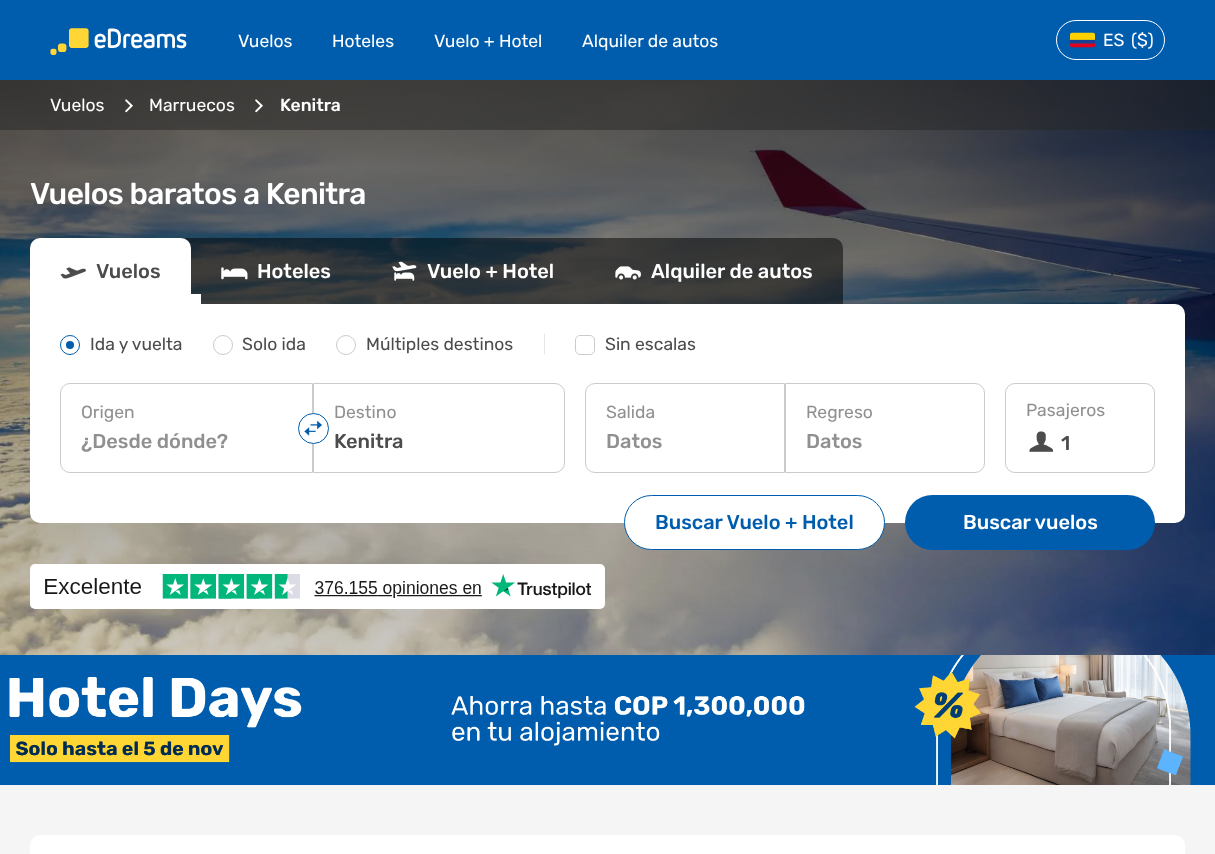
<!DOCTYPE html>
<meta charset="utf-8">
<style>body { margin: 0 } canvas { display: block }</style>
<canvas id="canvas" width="1215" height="854"></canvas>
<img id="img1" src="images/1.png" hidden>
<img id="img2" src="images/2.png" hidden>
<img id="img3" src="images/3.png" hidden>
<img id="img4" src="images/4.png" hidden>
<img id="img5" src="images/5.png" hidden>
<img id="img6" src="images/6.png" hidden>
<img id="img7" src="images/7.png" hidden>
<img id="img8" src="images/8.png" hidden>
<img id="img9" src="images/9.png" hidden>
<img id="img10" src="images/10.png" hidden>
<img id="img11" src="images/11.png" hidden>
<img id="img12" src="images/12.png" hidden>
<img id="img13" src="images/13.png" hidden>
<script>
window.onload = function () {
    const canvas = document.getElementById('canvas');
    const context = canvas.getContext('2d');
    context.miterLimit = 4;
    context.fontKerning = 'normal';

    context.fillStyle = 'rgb(245, 245, 245)';
    context.fillRect(0, 0, 1215, 854);
    context.fillStyle = 'rgb(0, 93, 173)';
    context.fillRect(0, 0, 1215, 80);
    context.drawImage(document.getElementById('img1'), 50, 28, 137, 27);
    context.beginPath();
    context.roundRect(1056.5, 20.5, 108, 39, 19.5);
    context.strokeStyle = 'rgb(255, 255, 255)';
    context.stroke();
    context.drawImage(document.getElementById('img2'), 1070, 32, 25, 16);
    context.drawImage(document.getElementById('img3'), 0, 80, 1215, 575);
    context.fillStyle = 'rgba(38, 38, 38, 0.5)';
    context.fillRect(0, 80, 1215, 50);
    context.drawImage(document.getElementById('img4'), 125, 99, 8, 14);
    context.drawImage(document.getElementById('img5'), 255, 99, 8, 14);
    context.fillStyle = 'rgba(0, 0, 0, 0.5)';
    context.beginPath();
    context.roundRect(30, 238, 813, 76, [10, 10, 0, 0]);
    context.fill();
    context.fillStyle = 'rgb(255, 255, 255)';
    context.beginPath();
    context.roundRect(30, 238, 161, 76, [10, 10, 0, 0]);
    context.fill();
    context.drawImage(document.getElementById('img6'), 60, 267, 26, 12);
    context.fillRect(191, 294, 10, 10);
    context.drawImage(document.getElementById('img7'), 221, 267, 27, 13);
    context.drawImage(document.getElementById('img8'), 392, 261, 25, 20);
    context.drawImage(document.getElementById('img9'), 615, 266, 26, 14);
    context.beginPath();
    context.roundRect(30, 304, 1155, 219, 10);
    context.fill();
    context.beginPath();
    context.arc(70, 345, 9.5, 0, 2 * Math.PI);
    context.strokeStyle = 'rgb(0, 93, 173)';
    context.stroke();
    context.fillStyle = 'rgb(0, 93, 173)';
    context.beginPath();
    context.arc(70, 345, 4, 0, 2 * Math.PI);
    context.fill();
    context.beginPath();
    context.arc(223, 345, 9.5, 0, 2 * Math.PI);
    context.strokeStyle = 'rgb(203, 203, 203)';
    context.stroke();
    context.beginPath();
    context.arc(346, 345, 9.5, 0, 2 * Math.PI);
    context.stroke();
    context.fillStyle = 'rgb(230, 230, 230)';
    context.fillRect(544, 334, 1, 20);
    context.beginPath();
    context.roundRect(575.5, 335.5, 19, 19, 4.5);
    context.stroke();
    context.beginPath();
    context.roundRect(60.5, 383.5, 252, 89, [9.5, 0, 0, 9.5]);
    context.stroke();
    context.beginPath();
    context.roundRect(313.5, 383.5, 251, 89, [0, 9.5, 9.5, 0]);
    context.stroke();
    context.fillStyle = 'rgb(255, 255, 255)';
    context.beginPath();
    context.arc(313.5, 428.5, 15, 0, 2 * Math.PI);
    context.fill();
    context.strokeStyle = 'rgb(0, 93, 173)';
    context.stroke();
    context.drawImage(document.getElementById('img10'), 304, 420, 18, 16);
    context.beginPath();
    context.roundRect(585.5, 383.5, 199, 89, [9.5, 0, 0, 9.5]);
    context.strokeStyle = 'rgb(203, 203, 203)';
    context.stroke();
    context.beginPath();
    context.roundRect(785.5, 383.5, 199, 89, [0, 9.5, 9.5, 0]);
    context.stroke();
    context.beginPath();
    context.roundRect(1005.5, 383.5, 149, 89, 9.5);
    context.stroke();
    context.drawImage(document.getElementById('img11'), 1029, 431, 25, 21);
    context.beginPath();
    context.roundRect(624.5, 495.5, 260, 54, 27);
    context.fill();
    context.strokeStyle = 'rgb(0, 93, 173)';
    context.stroke();
    context.fillStyle = 'rgb(0, 93, 173)';
    context.beginPath();
    context.roundRect(905, 495, 250, 55, 27.5);
    context.fill();
    context.fillStyle = 'rgb(255, 255, 255)';
    context.beginPath();
    context.roundRect(30, 564, 575, 45, 5);
    context.fill();
    context.drawImage(document.getElementById('img12'), 45, 573, 547, 26);
    context.fillStyle = 'rgb(0, 93, 173)';
    context.fillRect(0, 655, 1215, 130);
    context.drawImage(document.getElementById('img13'), 9, 655, 1182, 130);
    context.fillStyle = 'rgb(255, 255, 255)';
    context.beginPath();
    context.roundRect(30, 835, 1155, 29, 10);
    context.fill();
    context.font = '17.5px Rubik';
    context.fillText('Vuelos', 238, 47);
    context.fillText('Hoteles', 332, 47);
    context.fillText('Vuelo + Hotel', 434, 47);
    context.fillText('Alquiler de autos', 582, 47);
    context.fillText('ES', 1103, 46);
    context.fillText('($)', 1131, 46);
    context.fillText('Vuelos', 50, 111);
    context.fillText('Marruecos', 149, 111);
    context.font = '500 17.5px Rubik';
    context.fillText('Kenitra', 280, 111);
    context.letterSpacing = '-0.6px';
    context.font = '500 30px Rubik';
    context.fillText('Vuelos baratos a Kenitra', 30, 204);
    context.letterSpacing = '0px';
    context.font = '500 20px Rubik';
    context.fillStyle = 'rgb(76, 76, 76)';
    context.fillText('Vuelos', 96, 278);
    context.fillStyle = 'rgb(255, 255, 255)';
    context.fillText('Hoteles', 257, 278);
    context.fillText('Vuelo + Hotel', 427, 278);
    context.fillText('Alquiler de autos', 651, 278);
    context.font = '17.5px Rubik';
    context.fillStyle = 'rgb(76, 76, 76)';
    context.fillText('Ida y vuelta', 90, 350);
    context.fillText('Solo ida', 242, 350);
    context.fillText('Múltiples destinos', 366, 350);
    context.fillText('Sin escalas', 605, 350);
    context.fillStyle = 'rgb(144, 144, 144)';
    context.fillText('Origen', 81, 418);
    context.font = '500 20px Rubik';
    context.fillText('¿Desde dónde?', 81, 448);
    context.font = '17.5px Rubik';
    context.fillText('Destino', 334, 418);
    context.font = '500 20px Rubik';
    context.fillStyle = 'rgb(76, 76, 76)';
    context.fillText('Kenitra', 334, 448);
    context.font = '17.5px Rubik';
    context.fillStyle = 'rgb(144, 144, 144)';
    context.fillText('Salida', 606, 418);
    context.font = '500 20px Rubik';
    context.fillText('Datos', 606, 448);
    context.font = '17.5px Rubik';
    context.fillText('Regreso', 806, 418);
    context.font = '500 20px Rubik';
    context.fillText('Datos', 806, 448);
    context.font = '17.5px Rubik';
    context.fillText('Pasajeros', 1026, 416);
    context.font = '500 20px Rubik';
    context.fillStyle = 'rgb(76, 76, 76)';
    context.fillText('1', 1061, 450);
    context.fillStyle = 'rgb(0, 93, 173)';
    context.fillText('Buscar Vuelo + Hotel', 655, 529);
    context.fillStyle = 'rgb(255, 255, 255)';
    context.fillText('Buscar vuelos', 963, 529);
};
</script>
